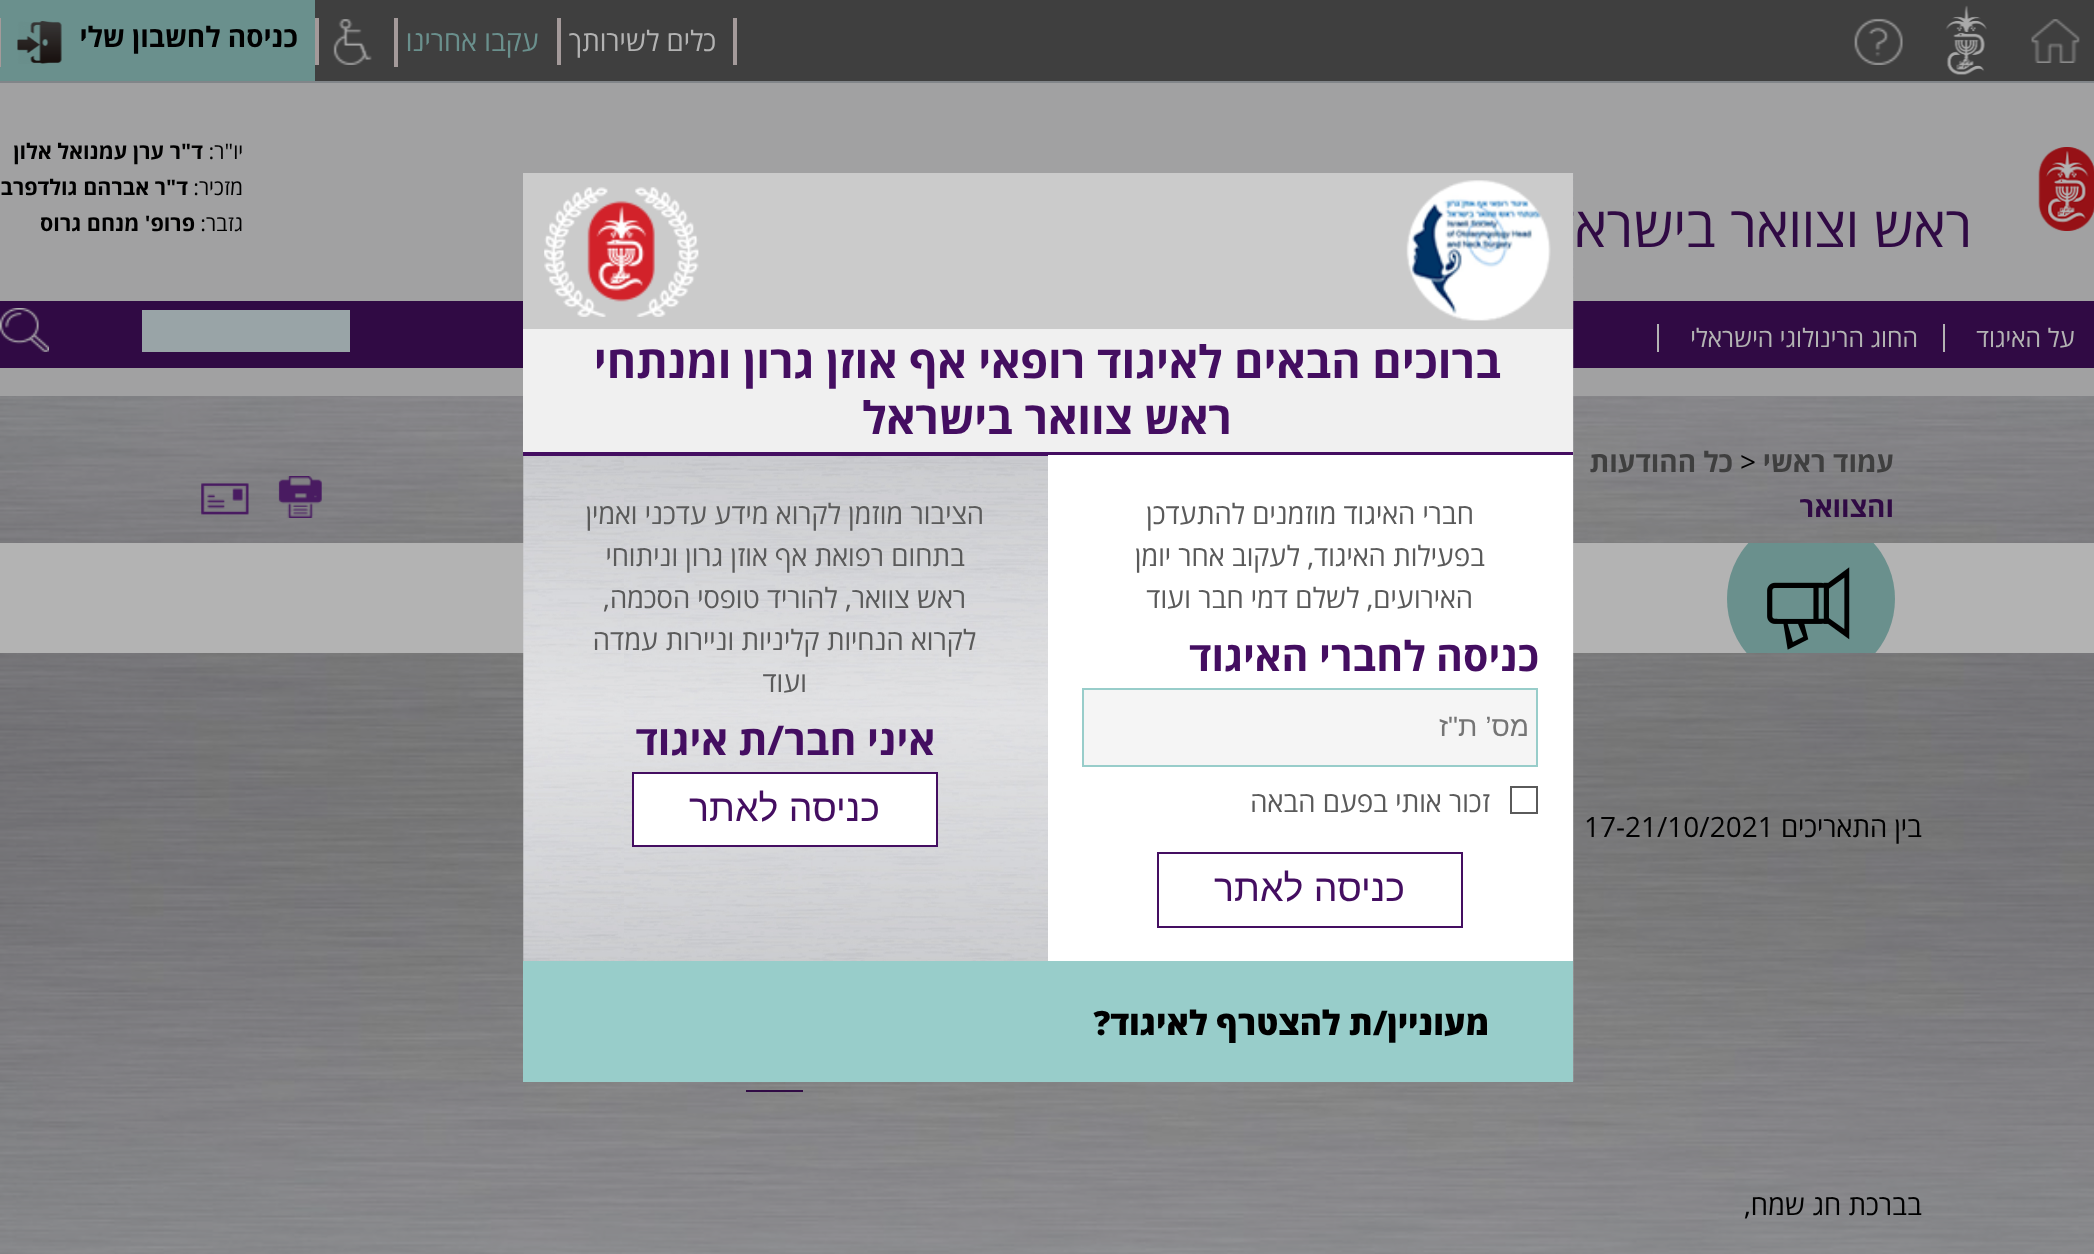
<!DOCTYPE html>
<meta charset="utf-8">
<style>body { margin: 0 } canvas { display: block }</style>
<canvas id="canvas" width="2094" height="1254"></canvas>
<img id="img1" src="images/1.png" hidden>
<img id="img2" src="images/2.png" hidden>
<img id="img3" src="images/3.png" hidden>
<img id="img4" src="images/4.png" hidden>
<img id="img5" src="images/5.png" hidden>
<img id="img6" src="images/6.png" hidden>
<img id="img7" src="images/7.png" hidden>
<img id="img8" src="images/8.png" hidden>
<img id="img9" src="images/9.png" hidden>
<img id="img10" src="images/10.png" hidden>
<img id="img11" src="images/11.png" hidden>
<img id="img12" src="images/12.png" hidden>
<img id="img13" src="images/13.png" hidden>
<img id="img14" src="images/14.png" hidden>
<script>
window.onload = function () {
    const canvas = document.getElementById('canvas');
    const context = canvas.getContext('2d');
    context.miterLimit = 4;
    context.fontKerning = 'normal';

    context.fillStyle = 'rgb(255, 255, 255)';
    context.fillRect(0, 0, 2094, 1254);
    context.drawImage(document.getElementById('img1'), 0, 396, 2094, 858);
    context.fillStyle = 'rgb(129, 133, 137)';
    context.fillRect(0, 81, 2094, 2);
    context.fillStyle = 'rgb(63, 63, 63)';
    context.fillRect(315, 0, 1779, 81);
    context.drawImage(document.getElementById('img2'), 2031, 19, 49, 44);
    context.drawImage(document.getElementById('img3'), 1945, 5, 42, 70);
    context.drawImage(document.getElementById('img4'), 1854, 18, 49, 47);
    context.fillStyle = 'rgb(164, 154, 154)';
    context.fillRect(733, 18, 4, 47);
    context.fillRect(557, 18, 4, 47);
    context.drawImage(document.getElementById('img5'), 333, 19, 39, 46);
    context.fillRect(394, 18, 4, 49);
    context.fillStyle = 'rgb(106, 144, 141)';
    context.fillRect(0, 0, 315, 81);
    context.fillStyle = 'rgb(164, 154, 154)';
    context.fillRect(315, 18, 4, 47);
    context.drawImage(document.getElementById('img6'), 17, 21, 45, 43);
    context.fillRect(0, 18, 1, 49);
    context.fillStyle = 'rgb(161, 161, 162)';
    context.fillRect(0, 83, 2094, 313);
    context.drawImage(document.getElementById('img7'), 2038, 147, 56, 84);
    context.fillStyle = 'rgb(48, 10, 68)';
    context.fillRect(0, 301, 2094, 67);
    context.fillStyle = 'rgb(179, 179, 179)';
    context.fillRect(1943, 324, 2, 28);
    context.fillRect(1657, 324, 2, 28);
    context.fillStyle = 'rgb(153, 164, 167)';
    context.fillRect(142, 310, 208, 42);
    context.drawImage(document.getElementById('img8'), 0, 308, 49, 44);
    context.drawImage(document.getElementById('img9'), 278, 476, 44, 42);
    context.drawImage(document.getElementById('img10'), 201, 483, 48, 32);
    context.fillStyle = 'rgb(179, 179, 179)';
    context.fillRect(0, 543, 2094, 110);
    context.fillStyle = 'rgb(48, 10, 68)';
    context.fillRect(746, 1090, 57, 2);
    context.direction = 'rtl';
    context.font = '28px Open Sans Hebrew';
    context.fillStyle = 'rgb(179, 179, 179)';
    context.fillText('כלים לשירותך', 716, 51);
    context.fillStyle = 'rgb(106, 144, 141)';
    context.fillText('עקבו אחרינו', 539, 51);
    context.font = 'bold 28px Open Sans Hebrew';
    context.fillStyle = 'rgb(0, 0, 0)';
    context.fillText('כניסה לחשבון שלי', 298, 47);
    context.font = '56px Open Sans Hebrew';
    context.fillStyle = 'rgb(48, 10, 68)';
    context.fillText('ראש וצוואר בישראל', 1972, 247);
    context.font = '21.5px Open Sans Hebrew';
    context.fillStyle = 'rgb(0, 0, 0)';
    context.fillText('יו"ר:', 243, 159);
    context.font = 'bold 21.5px Open Sans Hebrew';
    context.fillText('ד"ר ערן עמנואל אלון', 203, 159);
    context.font = '21.5px Open Sans Hebrew';
    context.fillText('מזכיר:', 243, 195);
    context.font = 'bold 21.5px Open Sans Hebrew';
    context.fillText('ד"ר אברהם גולדפרב', 188, 195);
    context.font = '21.5px Open Sans Hebrew';
    context.fillText('גזבר:', 243, 231);
    context.font = 'bold 21.5px Open Sans Hebrew';
    context.fillText('פרופ\' מנחם גרוס', 195, 231);
    context.font = '25.25px Open Sans Hebrew';
    context.fillStyle = 'rgb(179, 179, 179)';
    context.fillText('על האיגוד', 2075, 347);
    context.fillText('החוג הרינולוגי הישראלי', 1918, 347);
    context.font = 'bold 28px Open Sans Hebrew';
    context.fillStyle = 'rgb(63, 63, 63)';
    context.fillText('עמוד ראשי', 1894, 472);
    context.direction = 'ltr';
    context.font = '28px Open Sans Hebrew';
    context.fillStyle = 'rgb(0, 0, 0)';
    context.fillText('>', 1740, 472);
    context.direction = 'rtl';
    context.font = 'bold 28px Open Sans Hebrew';
    context.fillStyle = 'rgb(63, 63, 63)';
    context.fillText('כל ההודעות', 1733, 472);
    context.fillStyle = 'rgb(48, 10, 68)';
    context.fillText('והצוואר', 1894, 517);
    context.save();
    context.beginPath();
    context.rect(173, 543, 1750, 110);
    context.clip();
    context.fillStyle = 'rgb(106, 144, 141)';
    context.beginPath();
    context.arc(1811, 599, 84, 0, 2 * Math.PI);
    context.fill();
    context.restore();
    context.drawImage(document.getElementById('img11'), 1767, 567, 83, 83);
    context.font = '28px Open Sans Hebrew';
    context.fillStyle = 'rgb(0, 0, 0)';
    context.fillText('בין התאריכים', 1922, 837);
    context.direction = 'ltr';
    context.fillText('17-21/10/2021', 1584, 837);
    context.direction = 'rtl';
    context.fillText('בברכת חג שמח,', 1922, 1215);
    context.drawImage(document.getElementById('img12'), 523, 173, 1051, 909);
    context.fillStyle = 'rgb(203, 203, 203)';
    context.fillRect(523, 173, 1050, 156);
    context.drawImage(document.getElementById('img13'), 1406, 180, 145, 141);
    context.drawImage(document.getElementById('img14'), 544, 187, 155, 130);
    context.fillStyle = 'rgb(240, 240, 240)';
    context.fillRect(523, 329, 1050, 123);
    context.fillStyle = 'rgb(68, 14, 97)';
    context.fillRect(523, 452, 1050, 4);
    context.font = 'bold 44.8px Open Sans Hebrew';
    context.fillText('ברוכים הבאים לאיגוד רופאי אף אוזן גרון ומנתחי', 1501, 378);
    context.fillText('ראש צוואר בישראל', 1232, 434);
    context.fillStyle = 'rgb(255, 255, 255)';
    context.fillRect(1048, 455, 525, 506);
    context.font = '28px Open Sans Hebrew';
    context.fillStyle = 'rgb(90, 90, 90)';
    context.fillText('חברי האיגוד מוזמנים להתעדכן', 1474, 524);
    context.fillText('בפעילות האיגוד, לעקוב אחר יומן', 1485, 566);
    context.fillText('האירועים, לשלם דמי חבר ועוד', 1473, 608);
    context.font = 'bold 41px Open Sans Hebrew';
    context.fillStyle = 'rgb(68, 14, 97)';
    context.fillText('כניסה לחברי האיגוד', 1539, 671);
    context.fillStyle = 'rgb(245, 245, 245)';
    context.beginPath();
    context.rect(1083, 689, 454, 77);
    context.fill();
    context.strokeStyle = 'rgb(152, 205, 202)';
    context.lineWidth = 2;
    context.stroke();
    context.font = '28px Liberation Sans';
    context.fillStyle = 'rgb(117, 117, 117)';
    context.fillText('מס’ ת"ז', 1529, 736);
    context.strokeStyle = 'rgb(90, 90, 90)';
    context.strokeRect(1511, 787, 26, 26);
    context.font = '28px Open Sans Hebrew';
    context.fillStyle = 'rgb(90, 90, 90)';
    context.fillText('זכור אותי בפעם הבאה', 1490, 812);
    context.strokeStyle = 'rgb(68, 14, 97)';
    context.strokeRect(1158, 853, 304, 74);
    context.font = '37.5px Liberation Sans';
    context.fillStyle = 'rgb(68, 14, 97)';
    context.fillText('כניסה לאתר', 1405, 901);
    context.font = '28px Open Sans Hebrew';
    context.fillStyle = 'rgb(90, 90, 90)';
    context.fillText('הציבור מוזמן לקרוא מידע עדכני ואמין', 984, 524);
    context.fillText('בתחום רפואת אף אוזן גרון וניתוחי', 965, 566);
    context.fillText('ראש צוואר, להוריד טופסי הסכמה,', 966, 608);
    context.fillText('לקרוא הנחיות קליניות וניירות עמדה', 976, 650);
    context.fillText('ועוד', 807, 692);
    context.font = 'bold 41px Open Sans Hebrew';
    context.fillStyle = 'rgb(68, 14, 97)';
    context.fillText('איני חבר/ת איגוד', 935, 755);
    context.fillStyle = 'rgb(255, 255, 255)';
    context.beginPath();
    context.rect(633, 773, 304, 73);
    context.fill();
    context.stroke();
    context.font = '37.5px Liberation Sans';
    context.fillStyle = 'rgb(68, 14, 97)';
    context.fillText('כניסה לאתר', 880, 821);
    context.fillStyle = 'rgb(152, 205, 202)';
    context.fillRect(523, 961, 1050, 121);
    context.font = '800 33.6px Open Sans Hebrew';
    context.fillStyle = 'rgb(0, 0, 0)';
    context.fillText('מעוניין/ת להצטרף לאיגוד?', 1489, 1035);
};
</script>
